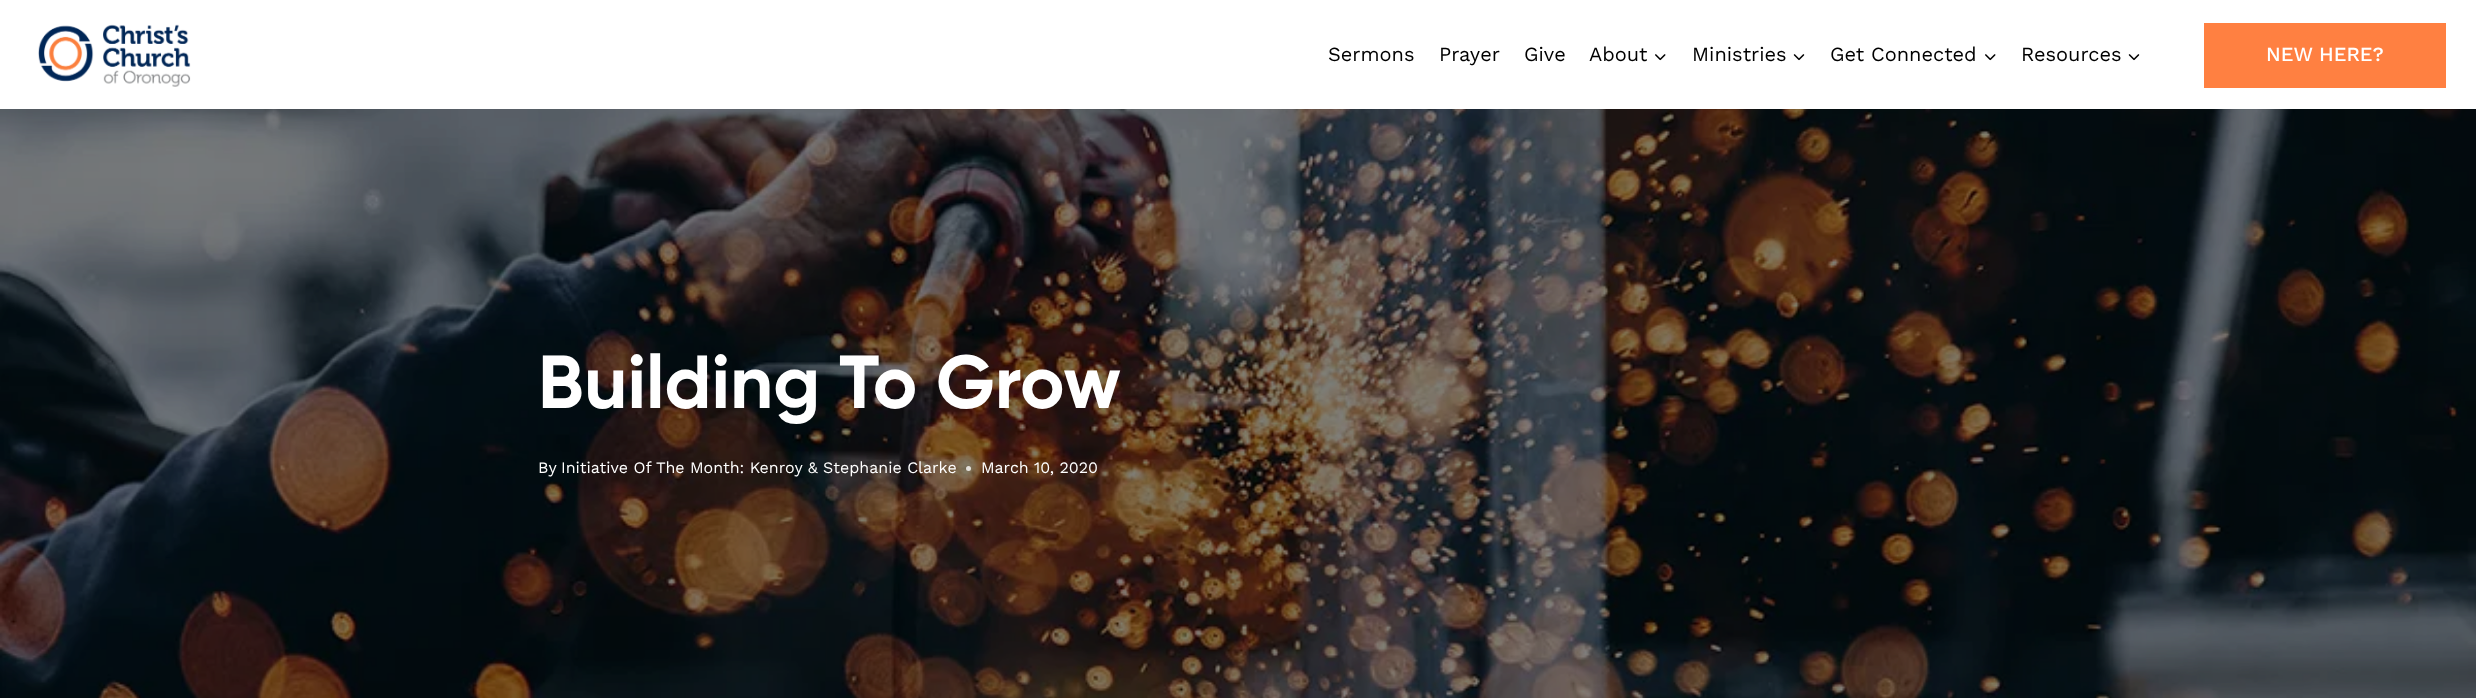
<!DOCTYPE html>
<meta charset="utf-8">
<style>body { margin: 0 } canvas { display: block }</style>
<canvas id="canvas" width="2476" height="698"></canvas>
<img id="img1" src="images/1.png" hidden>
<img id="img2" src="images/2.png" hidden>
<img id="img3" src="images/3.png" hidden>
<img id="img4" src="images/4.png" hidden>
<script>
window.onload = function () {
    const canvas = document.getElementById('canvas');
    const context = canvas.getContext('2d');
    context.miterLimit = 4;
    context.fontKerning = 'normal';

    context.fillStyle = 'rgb(255, 255, 255)';
    context.fillRect(0, 0, 2476, 698);
    context.drawImage(document.getElementById('img1'), 38, 24, 153, 63);
    context.drawImage(document.getElementById('img2'), 1655, 54, 11, 7);
    context.drawImage(document.getElementById('img3'), 1793, 54, 12, 7);
    context.drawImage(document.getElementById('img2'), 1985, 54, 11, 7);
    context.drawImage(document.getElementById('img3'), 2128, 54, 12, 7);
    context.fillStyle = 'rgb(255, 128, 65)';
    context.fillRect(2204, 23, 242, 65);
    context.drawImage(document.getElementById('img4'), 0, 109, 2476, 589);
    context.fillStyle = 'rgba(255, 255, 255, 0.8)';
    context.beginPath();
    context.arc(968.5, 468.5, 2.5, 0, 2 * Math.PI);
    context.fill();
    context.font = '20px Work Sans';
    context.fillStyle = 'rgb(0, 0, 0)';
    context.fillText('Sermons', 1328, 61);
    context.fillText('Prayer', 1439, 61);
    context.fillText('Give', 1524, 61);
    context.fillText('About', 1589, 61);
    context.fillText('Ministries', 1692, 61);
    context.fillText('Get Connected', 1830, 61);
    context.fillText('Resources', 2021, 61);
    context.font = '500 20px Work Sans';
    context.fillStyle = 'rgb(255, 255, 255)';
    context.fillText('NEW HERE?', 2266, 61);
    context.font = 'bold 75px Gilroy';
    context.fillText('Building To Grow', 538, 408);
    context.font = '16px Work Sans';
    context.fillText('By', 538, 473);
    context.fillText('Initiative Of The Month: Kenroy & Stephanie Clarke', 561, 473);
    context.fillText('March 10, 2020', 981, 473);
};
</script>
